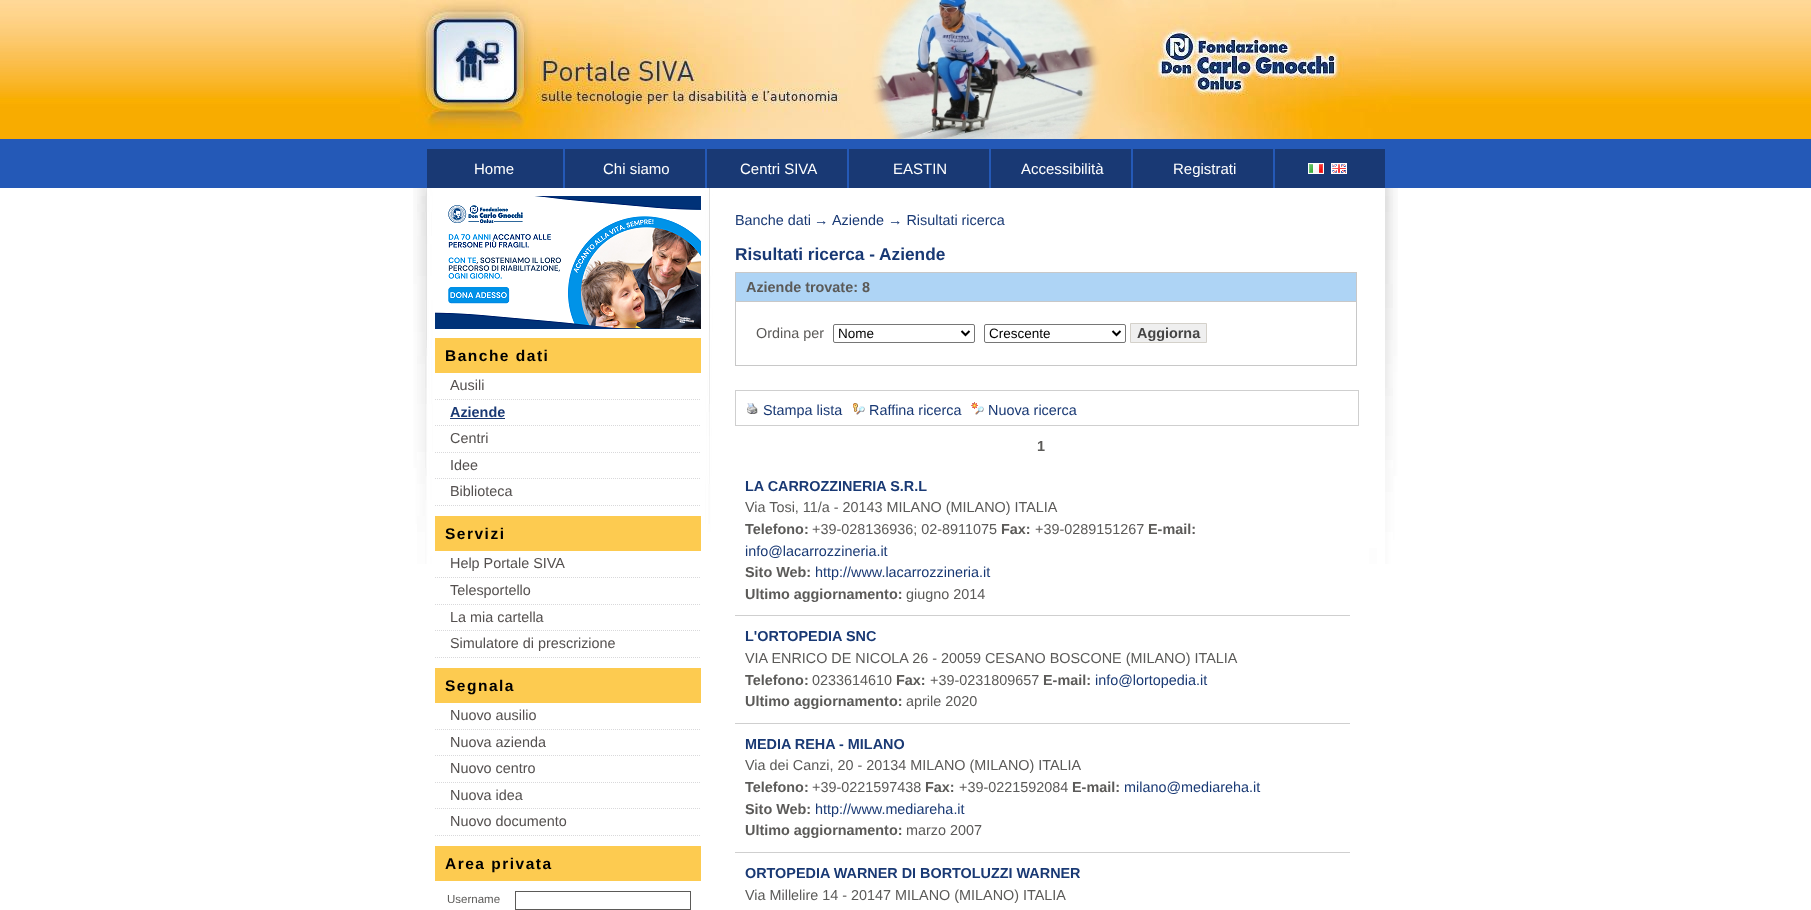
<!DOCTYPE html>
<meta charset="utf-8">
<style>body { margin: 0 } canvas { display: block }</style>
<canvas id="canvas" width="1811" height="910"></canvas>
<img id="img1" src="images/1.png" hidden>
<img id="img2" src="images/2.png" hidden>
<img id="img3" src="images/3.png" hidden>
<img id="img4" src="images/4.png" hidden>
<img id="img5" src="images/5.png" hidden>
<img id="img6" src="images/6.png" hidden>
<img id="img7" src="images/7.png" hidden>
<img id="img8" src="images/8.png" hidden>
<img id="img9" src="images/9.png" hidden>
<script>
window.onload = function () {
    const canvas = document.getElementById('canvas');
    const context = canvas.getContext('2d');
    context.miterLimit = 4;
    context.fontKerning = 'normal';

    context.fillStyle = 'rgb(255, 255, 255)';
    context.fillRect(0, 0, 1811, 910);
    context.fillStyle = 'rgb(248, 172, 0)';
    context.fillRect(0, 137, 1811, 2);
    context.drawImage(document.getElementById('img1'), 0, 0, 1811, 137);
    context.drawImage(document.getElementById('img2'), 400, 0, 1011, 139);
    context.fillStyle = 'rgb(36, 89, 183)';
    context.fillRect(0, 139, 1811, 49);
    context.fillStyle = 'rgb(25, 57, 116)';
    context.fillRect(427, 149, 958, 39);
    context.fillStyle = 'rgb(36, 89, 183)';
    context.fillRect(563, 149, 2, 39);
    context.fillRect(705, 149, 2, 39);
    context.fillRect(847, 149, 2, 39);
    context.fillRect(989, 149, 2, 39);
    context.fillRect(1131, 149, 2, 39);
    context.fillRect(1273, 149, 2, 39);
    context.strokeStyle = 'rgb(255, 255, 255)';
    context.strokeRect(1308.5, 163.5, 15, 10);
    context.drawImage(document.getElementById('img3'), 1309, 164, 14, 9);
    context.strokeRect(1331.5, 163.5, 15, 10);
    context.drawImage(document.getElementById('img4'), 1332, 164, 14, 9);
    context.drawImage(document.getElementById('img5'), 413, 188, 985, 376);
    context.drawImage(document.getElementById('img6'), 435, 196, 266, 133);
    context.fillStyle = 'rgb(255, 255, 255)';
    context.fillRect(431, 468, 1, 8);
    context.fillStyle = 'rgb(253, 203, 80)';
    context.fillRect(435, 338, 266, 35);
    context.beginPath();
    context.moveTo(435, 399.5);
    context.lineTo(701, 399.5);
    context.strokeStyle = 'rgb(217, 217, 219)';
    context.setLineDash([1, 1]);
    context.stroke();
    context.beginPath();
    context.moveTo(435, 425.5);
    context.lineTo(701, 425.5);
    context.stroke();
    context.fillStyle = 'rgb(25, 57, 116)';
    context.fillRect(450, 418, 55, 1);
    context.beginPath();
    context.moveTo(435, 452.5);
    context.lineTo(701, 452.5);
    context.stroke();
    context.beginPath();
    context.moveTo(435, 478.5);
    context.lineTo(701, 478.5);
    context.stroke();
    context.beginPath();
    context.moveTo(435, 505.5);
    context.lineTo(701, 505.5);
    context.stroke();
    context.fillStyle = 'rgb(253, 203, 80)';
    context.fillRect(435, 516, 266, 35);
    context.beginPath();
    context.moveTo(435, 577.5);
    context.lineTo(701, 577.5);
    context.stroke();
    context.beginPath();
    context.moveTo(435, 604.5);
    context.lineTo(701, 604.5);
    context.stroke();
    context.beginPath();
    context.moveTo(435, 630.5);
    context.lineTo(701, 630.5);
    context.stroke();
    context.beginPath();
    context.moveTo(435, 657.5);
    context.lineTo(701, 657.5);
    context.stroke();
    context.fillRect(435, 668, 266, 35);
    context.beginPath();
    context.moveTo(435, 729.5);
    context.lineTo(701, 729.5);
    context.stroke();
    context.beginPath();
    context.moveTo(435, 755.5);
    context.lineTo(701, 755.5);
    context.stroke();
    context.beginPath();
    context.moveTo(435, 782.5);
    context.lineTo(701, 782.5);
    context.stroke();
    context.beginPath();
    context.moveTo(435, 808.5);
    context.lineTo(701, 808.5);
    context.stroke();
    context.beginPath();
    context.moveTo(435, 835.5);
    context.lineTo(701, 835.5);
    context.stroke();
    context.fillRect(435, 846, 266, 35);
    context.strokeStyle = 'rgb(91, 90, 88)';
    context.setLineDash([]);
    context.strokeRect(515.5, 891.5, 175, 18);
    context.strokeStyle = 'rgb(200, 200, 200)';
    context.strokeRect(735.5, 272.5, 621, 93);
    context.fillStyle = 'rgb(174, 212, 245)';
    context.fillRect(736, 273, 620, 28);
    context.fillStyle = 'rgb(200, 200, 200)';
    context.fillRect(736, 301, 620, 1);
    context.beginPath();
    context.roundRect(833.5, 324.5, 141, 18, 1.5);
    context.strokeStyle = 'rgb(118, 118, 118)';
    context.stroke();
    context.beginPath();
    context.moveTo(961.5, 331);
    context.lineTo(965.5, 335);
    context.lineTo(969.5, 331);
    context.strokeStyle = 'rgb(0, 0, 0)';
    context.lineWidth = 2;
    context.stroke();
    context.beginPath();
    context.roundRect(984.5, 324.5, 141, 18, 1.5);
    context.strokeStyle = 'rgb(118, 118, 118)';
    context.lineWidth = 1;
    context.stroke();
    context.beginPath();
    context.moveTo(1112.5, 331);
    context.lineTo(1116.5, 335);
    context.lineTo(1120.5, 331);
    context.strokeStyle = 'rgb(0, 0, 0)';
    context.lineWidth = 2;
    context.stroke();
    context.fillStyle = 'rgb(239, 239, 239)';
    context.beginPath();
    context.rect(1130.5, 323.5, 76, 19);
    context.fill();
    context.strokeStyle = 'rgb(212, 209, 202)';
    context.lineWidth = 1;
    context.stroke();
    context.strokeStyle = 'rgb(207, 207, 207)';
    context.strokeRect(735.5, 390.5, 623, 35);
    context.drawImage(document.getElementById('img7'), 747, 403, 11, 11);
    context.drawImage(document.getElementById('img8'), 853, 403, 12, 12);
    context.drawImage(document.getElementById('img9'), 971, 402, 13, 13);
    context.fillStyle = 'rgb(207, 207, 207)';
    context.fillRect(735, 615, 615, 1);
    context.fillRect(735, 723, 615, 1);
    context.fillRect(735, 852, 615, 1);
    context.font = '15px Liberation Sans';
    context.fillStyle = 'rgb(255, 255, 255)';
    context.fillText('Home', 474, 174);
    context.fillText('Chi siamo', 603, 174);
    context.fillText('Centri SIVA', 740, 174);
    context.fillText('EASTIN', 893, 174);
    context.fillText('Accessibilità', 1021, 174);
    context.fillText('Registrati', 1173, 174);
    context.letterSpacing = '1.5px';
    context.font = 'bold 15.5px Liberation Sans';
    context.fillStyle = 'rgb(0, 0, 0)';
    context.fillText('Banche dati', 445, 361);
    context.letterSpacing = '0px';
    context.font = '14.4px Liberation Sans';
    context.fillStyle = 'rgb(84, 80, 79)';
    context.fillText('Ausili', 450, 390);
    context.font = 'bold 14.4px Liberation Sans';
    context.fillStyle = 'rgb(25, 57, 116)';
    context.fillText('Aziende', 450, 417);
    context.font = '14.4px Liberation Sans';
    context.fillStyle = 'rgb(84, 80, 79)';
    context.fillText('Centri', 450, 443);
    context.fillText('Idee', 450, 470);
    context.fillText('Biblioteca', 450, 496);
    context.letterSpacing = '1.5px';
    context.font = 'bold 15.5px Liberation Sans';
    context.fillStyle = 'rgb(0, 0, 0)';
    context.fillText('Servizi', 445, 539);
    context.letterSpacing = '0px';
    context.font = '14.4px Liberation Sans';
    context.fillStyle = 'rgb(84, 80, 79)';
    context.fillText('Help Portale SIVA', 450, 568);
    context.fillText('Telesportello', 450, 595);
    context.fillText('La mia cartella', 450, 622);
    context.fillText('Simulatore di prescrizione', 450, 648);
    context.letterSpacing = '1.5px';
    context.font = 'bold 15.5px Liberation Sans';
    context.fillStyle = 'rgb(0, 0, 0)';
    context.fillText('Segnala', 445, 691);
    context.letterSpacing = '0px';
    context.font = '14.4px Liberation Sans';
    context.fillStyle = 'rgb(84, 80, 79)';
    context.fillText('Nuovo ausilio', 450, 720);
    context.fillText('Nuova azienda', 450, 747);
    context.fillText('Nuovo centro', 450, 773);
    context.fillText('Nuova idea', 450, 800);
    context.fillText('Nuovo documento', 450, 826);
    context.letterSpacing = '1.5px';
    context.font = 'bold 15.5px Liberation Sans';
    context.fillStyle = 'rgb(0, 0, 0)';
    context.fillText('Area privata', 445, 869);
    context.letterSpacing = '0px';
    context.font = '11.5px Liberation Sans';
    context.fillStyle = 'rgb(91, 90, 88)';
    context.fillText('Username', 447, 903);
    context.font = '14.4px Liberation Sans';
    context.fillStyle = 'rgb(25, 57, 116)';
    context.fillText('Banche dati', 735, 225);
    context.fillText('→', 814, 225);
    context.fillText('Aziende → Risultati ricerca', 832, 225);
    context.font = 'bold 17.25px Liberation Sans';
    context.fillText('Risultati ricerca - Aziende', 735, 260);
    context.font = 'bold 14.4px Liberation Sans';
    context.fillStyle = 'rgb(91, 90, 88)';
    context.fillText('Aziende trovate: 8', 746, 292);
    context.font = '14.4px Liberation Sans';
    context.fillText('Ordina per', 756, 338);
    context.font = '13.5px Liberation Sans';
    context.fillStyle = 'rgb(0, 0, 0)';
    context.fillText('Nome', 838, 338);
    context.fillText('Crescente', 989, 338);
    context.font = 'bold 14.4px Liberation Sans';
    context.fillStyle = 'rgb(68, 68, 68)';
    context.fillText('Aggiorna', 1137, 338);
    context.font = '14.4px Liberation Sans';
    context.fillStyle = 'rgb(25, 57, 116)';
    context.fillText('Stampa lista', 763, 415);
    context.fillText('Raffina ricerca', 869, 415);
    context.fillText('Nuova ricerca', 988, 415);
    context.font = 'bold 14.4px Liberation Sans';
    context.fillStyle = 'rgb(91, 90, 88)';
    context.fillText('1', 1037, 451);
    context.fillStyle = 'rgb(25, 57, 116)';
    context.fillText('LA CARROZZINERIA S.R.L', 745, 491);
    context.font = '14.4px Liberation Sans';
    context.fillStyle = 'rgb(91, 90, 88)';
    context.fillText('Via Tosi, 11/a - 20143 MILANO (MILANO) ITALIA', 745, 512);
    context.font = 'bold 14.4px Liberation Sans';
    context.fillText('Telefono:', 745, 534);
    context.font = '14.4px Liberation Sans';
    context.fillText('+39-028136936; 02-8911075', 812, 534);
    context.font = 'bold 14.4px Liberation Sans';
    context.fillText('Fax:', 1001, 534);
    context.font = '14.4px Liberation Sans';
    context.fillText('+39-0289151267', 1035, 534);
    context.font = 'bold 14.4px Liberation Sans';
    context.fillText('E-mail:', 1148, 534);
    context.font = '14.4px Liberation Sans';
    context.fillStyle = 'rgb(25, 57, 116)';
    context.fillText('info@lacarrozzineria.it', 745, 556);
    context.font = 'bold 14.4px Liberation Sans';
    context.fillStyle = 'rgb(91, 90, 88)';
    context.fillText('Sito Web:', 745, 577);
    context.font = '14.4px Liberation Sans';
    context.fillStyle = 'rgb(25, 57, 116)';
    context.fillText('http://www.lacarrozzineria.it', 815, 577);
    context.font = 'bold 14.4px Liberation Sans';
    context.fillStyle = 'rgb(91, 90, 88)';
    context.fillText('Ultimo aggiornamento:', 745, 599);
    context.font = '14.4px Liberation Sans';
    context.fillText('giugno 2014', 906, 599);
    context.font = 'bold 14.4px Liberation Sans';
    context.fillStyle = 'rgb(25, 57, 116)';
    context.fillText('L\'ORTOPEDIA SNC', 745, 641);
    context.font = '14.4px Liberation Sans';
    context.fillStyle = 'rgb(91, 90, 88)';
    context.fillText('VIA ENRICO DE NICOLA 26 - 20059 CESANO BOSCONE (MILANO) ITALIA', 745, 663);
    context.font = 'bold 14.4px Liberation Sans';
    context.fillText('Telefono:', 745, 685);
    context.font = '14.4px Liberation Sans';
    context.fillText('0233614610', 812, 685);
    context.font = 'bold 14.4px Liberation Sans';
    context.fillText('Fax:', 896, 685);
    context.font = '14.4px Liberation Sans';
    context.fillText('+39-0231809657', 930, 685);
    context.font = 'bold 14.4px Liberation Sans';
    context.fillText('E-mail:', 1043, 685);
    context.font = '14.4px Liberation Sans';
    context.fillStyle = 'rgb(25, 57, 116)';
    context.fillText('info@lortopedia.it', 1095, 685);
    context.font = 'bold 14.4px Liberation Sans';
    context.fillStyle = 'rgb(91, 90, 88)';
    context.fillText('Ultimo aggiornamento:', 745, 706);
    context.font = '14.4px Liberation Sans';
    context.fillText('aprile 2020', 906, 706);
    context.font = 'bold 14.4px Liberation Sans';
    context.fillStyle = 'rgb(25, 57, 116)';
    context.fillText('MEDIA REHA - MILANO', 745, 749);
    context.font = '14.4px Liberation Sans';
    context.fillStyle = 'rgb(91, 90, 88)';
    context.fillText('Via dei Canzi, 20 - 20134 MILANO (MILANO) ITALIA', 745, 770);
    context.font = 'bold 14.4px Liberation Sans';
    context.fillText('Telefono:', 745, 792);
    context.font = '14.4px Liberation Sans';
    context.fillText('+39-0221597438', 812, 792);
    context.font = 'bold 14.4px Liberation Sans';
    context.fillText('Fax:', 925, 792);
    context.font = '14.4px Liberation Sans';
    context.fillText('+39-0221592084', 959, 792);
    context.font = 'bold 14.4px Liberation Sans';
    context.fillText('E-mail:', 1072, 792);
    context.font = '14.4px Liberation Sans';
    context.fillStyle = 'rgb(25, 57, 116)';
    context.fillText('milano@mediareha.it', 1124, 792);
    context.font = 'bold 14.4px Liberation Sans';
    context.fillStyle = 'rgb(91, 90, 88)';
    context.fillText('Sito Web:', 745, 814);
    context.font = '14.4px Liberation Sans';
    context.fillStyle = 'rgb(25, 57, 116)';
    context.fillText('http://www.mediareha.it', 815, 814);
    context.font = 'bold 14.4px Liberation Sans';
    context.fillStyle = 'rgb(91, 90, 88)';
    context.fillText('Ultimo aggiornamento:', 745, 835);
    context.font = '14.4px Liberation Sans';
    context.fillText('marzo 2007', 906, 835);
    context.font = 'bold 14.4px Liberation Sans';
    context.fillStyle = 'rgb(25, 57, 116)';
    context.fillText('ORTOPEDIA WARNER DI BORTOLUZZI WARNER', 745, 878);
    context.font = '14.4px Liberation Sans';
    context.fillStyle = 'rgb(91, 90, 88)';
    context.fillText('Via Millelire 14 - 20147 MILANO (MILANO) ITALIA', 745, 900);
};
</script>
